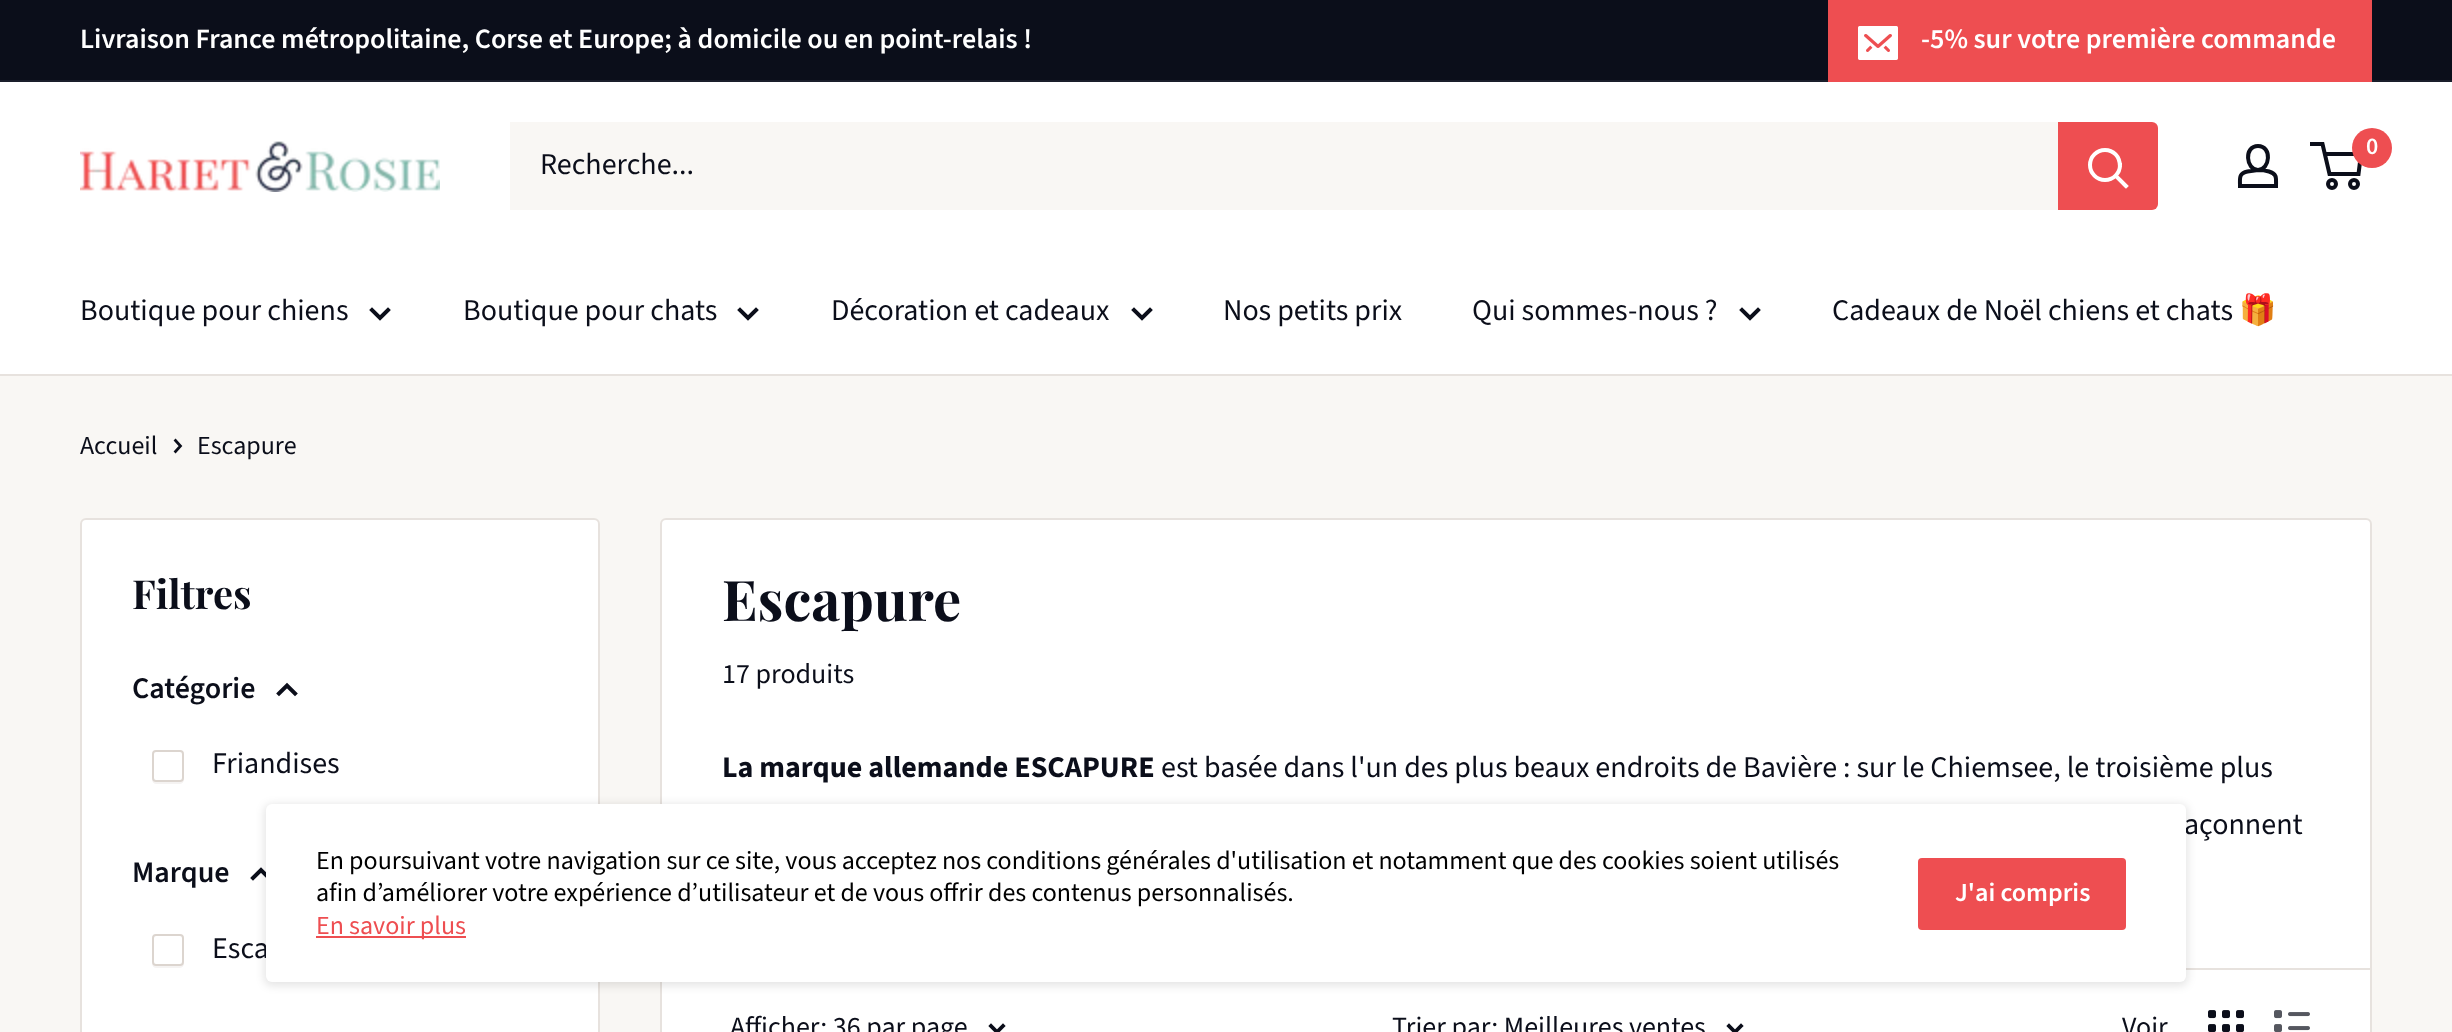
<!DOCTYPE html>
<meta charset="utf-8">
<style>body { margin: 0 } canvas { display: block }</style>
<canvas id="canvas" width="2452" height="1032"></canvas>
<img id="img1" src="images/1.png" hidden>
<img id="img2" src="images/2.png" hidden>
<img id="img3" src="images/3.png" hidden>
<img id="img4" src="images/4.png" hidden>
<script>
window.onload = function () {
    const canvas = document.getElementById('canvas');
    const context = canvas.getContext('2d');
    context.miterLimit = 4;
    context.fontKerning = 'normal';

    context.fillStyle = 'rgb(249, 247, 244)';
    context.fillRect(0, 0, 2452, 1032);
    context.fillStyle = 'rgb(11, 14, 26)';
    context.fillRect(0, 0, 2452, 80);
    context.fillStyle = 'rgb(26, 30, 43)';
    context.fillRect(0, 80, 2452, 2);
    context.fillStyle = 'rgb(238, 78, 81)';
    context.fillRect(1828, 0, 544, 82);
    context.drawImage(document.getElementById('img1'), 1858, 26, 40, 34);
    context.fillStyle = 'rgb(255, 255, 255)';
    context.fillRect(0, 82, 2452, 292);
    context.drawImage(document.getElementById('img2'), 80, 141, 360, 51);
    context.fillStyle = 'rgb(249, 247, 244)';
    context.fillRect(510, 122, 1548, 88);
    context.fillStyle = 'rgb(238, 78, 81)';
    context.beginPath();
    context.roundRect(2058, 122, 100, 88, [0, 6, 6, 0]);
    context.fill();
    context.beginPath();
    context.moveTo(2126, 186);
    context.lineTo(2116, 176);
    context.strokeStyle = 'rgb(255, 255, 255)';
    context.lineWidth = 4;
    context.lineCap = 'square';
    context.stroke();
    context.beginPath();
    context.arc(2105, 165, 15, 0, 2 * Math.PI);
    context.stroke();
    context.beginPath();
    context.moveTo(2258, 170);
    context.bezierCurveTo(2262, 170, 2265.5, 170.5, 2269, 171.5);
    context.bezierCurveTo(2277.5, 174, 2276, 178.5, 2276, 186);
    context.lineTo(2240, 186);
    context.bezierCurveTo(2240, 178, 2238.5, 173.5, 2247.5, 171.5);
    context.closePath();
    context.moveTo(2258, 170);
    context.bezierCurveTo(2246, 170, 2243.5, 146, 2258, 146);
    context.bezierCurveTo(2272.5, 146, 2270, 170, 2258, 170);
    context.closePath();
    context.strokeStyle = 'rgb(11, 14, 26)';
    context.lineCap = 'butt';
    context.stroke();
    context.beginPath();
    context.arc(2332, 184, 4, 0, 2 * Math.PI);
    context.stroke();
    context.beginPath();
    context.arc(2354, 184, 4, 0, 2 * Math.PI);
    context.stroke();
    context.beginPath();
    context.moveTo(2324.5, 154);
    context.lineTo(2361, 154);
    context.lineTo(2358.5, 174);
    context.lineTo(2329.5, 174);
    context.lineTo(2322.5, 144);
    context.lineTo(2310, 144);
    context.stroke();
    context.beginPath();
    context.arc(2372, 148, 20, 0, 2 * Math.PI);
    context.fill();
    context.fillStyle = 'rgb(231, 226, 222)';
    context.fillRect(0, 374, 2452, 2);
    context.beginPath();
    context.moveTo(388, 310);
    context.lineTo(380, 318);
    context.lineTo(372, 310);
    context.lineCap = 'square';
    context.stroke();
    context.beginPath();
    context.moveTo(756, 310);
    context.lineTo(748, 318);
    context.lineTo(740, 310);
    context.stroke();
    context.beginPath();
    context.moveTo(1150, 310);
    context.lineTo(1142, 318);
    context.lineTo(1134, 310);
    context.stroke();
    context.beginPath();
    context.moveTo(1758, 310);
    context.lineTo(1750, 318);
    context.lineTo(1742, 310);
    context.stroke();
    context.beginPath();
    context.moveTo(175.5, 440.5);
    context.lineTo(180.5, 446);
    context.lineTo(175.5, 451.5);
    context.lineWidth = 2.7;
    context.stroke();
    context.fillStyle = 'rgb(255, 255, 255)';
    context.beginPath();
    context.roundRect(81, 519, 518, 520, 5);
    context.fill();
    context.strokeStyle = 'rgb(231, 226, 222)';
    context.lineWidth = 2;
    context.stroke();
    context.beginPath();
    context.moveTo(279, 693.5);
    context.lineTo(287, 685.5);
    context.lineTo(295, 693.5);
    context.strokeStyle = 'rgb(11, 14, 26)';
    context.lineWidth = 4;
    context.stroke();
    context.fillStyle = 'rgb(245, 243, 242)';
    context.beginPath();
    context.moveTo(152, 778);
    context.bezierCurveTo(152, 784, 154.5, 784, 160, 784);
    context.lineTo(176, 784);
    context.bezierCurveTo(181.5, 784, 184, 784, 184, 778);
    context.bezierCurveTo(184, 780, 182, 782, 180, 782);
    context.lineTo(156, 782);
    context.bezierCurveTo(154, 782, 152, 780, 152, 778);
    context.closePath();
    context.fill();
    context.fillStyle = 'rgb(255, 255, 255)';
    context.beginPath();
    context.roundRect(153, 751, 30, 30, 3);
    context.fill();
    context.strokeStyle = 'rgb(220, 213, 207)';
    context.lineWidth = 2;
    context.stroke();
    context.beginPath();
    context.moveTo(253, 878);
    context.lineTo(261, 870);
    context.lineTo(269, 878);
    context.strokeStyle = 'rgb(11, 14, 26)';
    context.lineWidth = 4;
    context.stroke();
    context.fillStyle = 'rgb(245, 243, 242)';
    context.beginPath();
    context.moveTo(152, 962);
    context.bezierCurveTo(152, 968, 154.5, 968, 160, 968);
    context.lineTo(176, 968);
    context.bezierCurveTo(181.5, 968, 184, 968, 184, 962);
    context.bezierCurveTo(184, 964, 182, 966, 180, 966);
    context.lineTo(156, 966);
    context.bezierCurveTo(154, 966, 152, 964, 152, 962);
    context.closePath();
    context.fill();
    context.fillStyle = 'rgb(255, 255, 255)';
    context.beginPath();
    context.roundRect(153, 935, 30, 30, 3);
    context.fill();
    context.strokeStyle = 'rgb(220, 213, 207)';
    context.lineWidth = 2;
    context.stroke();
    context.beginPath();
    context.roundRect(661, 519, 1710, 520, 5);
    context.fill();
    context.strokeStyle = 'rgb(231, 226, 222)';
    context.stroke();
    context.fillStyle = 'rgb(231, 226, 222)';
    context.fillRect(2186, 968, 184, 2);
    context.beginPath();
    context.moveTo(1003, 1026);
    context.lineTo(997, 1032);
    context.lineTo(991, 1026);
    context.strokeStyle = 'rgb(11, 14, 26)';
    context.lineWidth = 3.8;
    context.stroke();
    context.beginPath();
    context.moveTo(1741, 1026);
    context.lineTo(1735, 1032);
    context.lineTo(1729, 1026);
    context.stroke();
    context.drawImage(document.getElementById('img3'), 2208, 1010, 36, 22);
    context.drawImage(document.getElementById('img4'), 2274, 1010, 36, 22);
    context.fillStyle = 'rgba(0, 0, 0, 0.1)';
    context.filter = 'blur(4px)';
    context.beginPath();
    context.roundRect(264, 804, 1924, 182, 8);
    context.fill();
    context.filter = 'none';
    context.font = '600 28px Source Sans Pro';
    context.fillStyle = 'rgb(255, 255, 255)';
    context.fillText('Livraison France métropolitaine, Corse et Europe; à domicile ou en point-relais !', 80, 48);
    context.fillText('-5% sur votre première commande', 1921, 48);
    context.font = '30px Source Sans Pro';
    context.fillStyle = 'rgb(11, 14, 26)';
    context.fillText('Recherche...', 540, 174);
    context.font = '600 24px Source Sans Pro';
    context.fillStyle = 'rgb(255, 255, 255)';
    context.fillText('0', 2366, 154);
    context.font = '30px Source Sans Pro';
    context.fillStyle = 'rgb(11, 14, 26)';
    context.fillText('Boutique pour chiens', 80, 320);
    context.fillText('Boutique pour chats', 463, 320);
    context.fillText('Décoration et cadeaux', 831, 320);
    context.fillText('Nos petits prix', 1223, 320);
    context.fillText('Qui sommes-nous ?', 1472, 320);
    context.fillText('Cadeaux de Noël chiens et chats', 1832, 320);
    context.font = '30px Noto Color Emoji';
    context.fillText('🎁', 2239, 320);
    context.font = '26px Source Sans Pro';
    context.fillText('Accueil', 80, 454);
    context.fillText('Escapure', 197, 454);
    context.font = 'bold 40px Playfair Display';
    context.fillText('Filtres', 132, 609);
    context.font = '600 30px Source Sans Pro';
    context.fillText('Catégorie', 132, 698);
    context.font = '30px Source Sans Pro';
    context.fillText('Friandises', 212, 773);
    context.font = '600 30px Source Sans Pro';
    context.fillText('Marque', 132, 882);
    context.font = '30px Source Sans Pro';
    context.fillText('Esca', 212, 958);
    context.font = 'bold 56px Playfair Display';
    context.fillText('Escapure', 722, 621);
    context.font = '28px Source Sans Pro';
    context.fillText('17 produits', 722, 683);
    context.font = 'bold 30px Source Sans Pro';
    context.fillText('La marque allemande ESCAPURE', 722, 777);
    context.font = '30px Source Sans Pro';
    context.fillText('est basée dans l\'un des plus beaux endroits de Bavière : sur le Chiemsee, le troisième plus', 1161, 777);
    context.fillText('açonnent', 2184, 834);
    context.font = '28px Source Sans Pro';
    context.fillText('Afficher: 36 par page', 730, 1036);
    context.fillText('Trier par: Meilleures ventes', 1392, 1036);
    context.fillText('Voir', 2122, 1036);
    context.fillStyle = 'rgb(255, 255, 255)';
    context.beginPath();
    context.roundRect(266, 804, 1920, 178, 6);
    context.fill();
    context.font = '26px Source Sans Pro';
    context.fillStyle = 'rgb(0, 0, 0)';
    context.fillText('En poursuivant votre navigation sur ce site, vous acceptez nos conditions générales d\'utilisation et notamment que des cookies soient utilisés', 316, 869);
    context.fillText('afin d’améliorer votre expérience d’utilisateur et de vous offrir des contenus personnalisés.', 316, 901);
    context.fillStyle = 'rgb(238, 78, 81)';
    context.fillRect(316, 936, 150, 2);
    context.fillText('En savoir plus', 316, 934);
    context.beginPath();
    context.roundRect(1918, 858, 208, 72, 4);
    context.fill();
    context.font = '600 26px Source Sans Pro';
    context.fillStyle = 'rgb(255, 255, 255)';
    context.fillText('J\'ai compris', 1955, 901);
};
</script>
